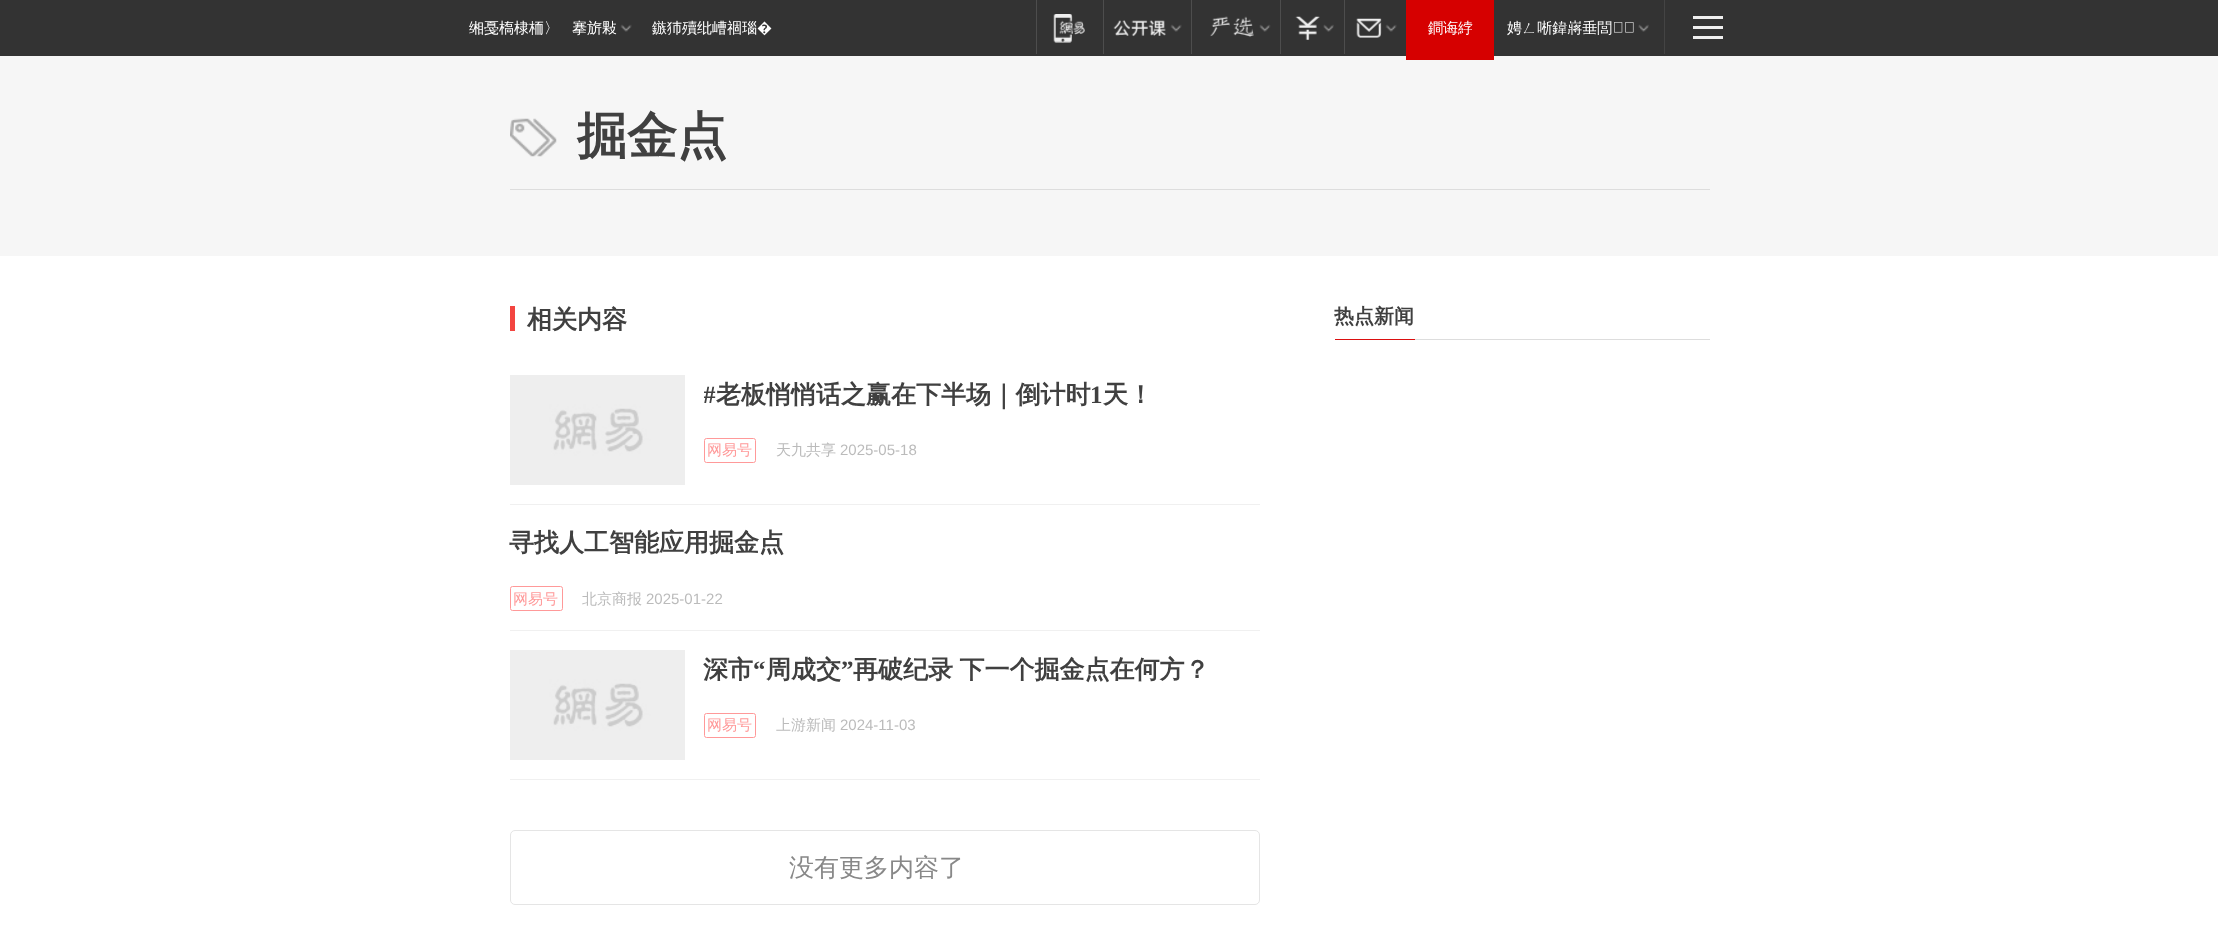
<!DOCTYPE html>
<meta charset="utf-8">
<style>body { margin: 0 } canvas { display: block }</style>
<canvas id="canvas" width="2218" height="927"></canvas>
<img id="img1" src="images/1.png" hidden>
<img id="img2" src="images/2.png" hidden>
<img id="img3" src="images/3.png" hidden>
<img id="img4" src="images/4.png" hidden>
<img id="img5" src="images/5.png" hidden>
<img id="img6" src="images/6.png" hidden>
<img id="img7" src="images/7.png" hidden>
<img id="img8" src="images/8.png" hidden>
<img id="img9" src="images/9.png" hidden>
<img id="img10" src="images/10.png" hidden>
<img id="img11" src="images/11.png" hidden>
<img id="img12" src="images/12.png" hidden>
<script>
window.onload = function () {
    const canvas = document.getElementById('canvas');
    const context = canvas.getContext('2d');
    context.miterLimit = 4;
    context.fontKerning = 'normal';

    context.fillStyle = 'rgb(255, 255, 255)';
    context.fillRect(0, 0, 2218, 927);
    context.fillStyle = 'rgb(51, 51, 51)';
    context.fillRect(0, 0, 2218, 56);
    context.drawImage(document.getElementById('img1'), 620, 24, 12, 8);
    context.fillStyle = 'rgb(77, 77, 77)';
    context.fillRect(1036, 0, 1, 54);
    context.drawImage(document.getElementById('img2'), 1053, 14, 32, 29);
    context.fillRect(1103, 0, 1, 54);
    context.drawImage(document.getElementById('img3'), 1113, 20, 53, 17);
    context.drawImage(document.getElementById('img1'), 1170, 24, 12, 8);
    context.fillRect(1191, 0, 1, 54);
    context.drawImage(document.getElementById('img4'), 1210, 16, 44, 21);
    context.drawImage(document.getElementById('img5'), 1259, 24, 12, 8);
    context.fillRect(1280, 0, 1, 54);
    context.drawImage(document.getElementById('img6'), 1295, 16, 25, 24);
    context.drawImage(document.getElementById('img7'), 1323, 24, 11, 8);
    context.fillRect(1344, 0, 1, 54);
    context.drawImage(document.getElementById('img8'), 1356, 18, 26, 20);
    context.drawImage(document.getElementById('img1'), 1385, 24, 12, 8);
    context.fillStyle = 'rgb(246, 246, 246)';
    context.fillRect(0, 56, 2218, 200);
    context.fillStyle = 'rgb(214, 0, 0)';
    context.fillRect(1406, 0, 88, 60);
    context.drawImage(document.getElementById('img9'), 1614, 22, 20, 11);
    context.drawImage(document.getElementById('img10'), 1638, 24, 11, 8);
    context.fillStyle = 'rgb(68, 68, 68)';
    context.fillRect(1664, 0, 1, 54);
    context.fillStyle = 'rgb(239, 239, 239)';
    context.fillRect(1693, 16, 30, 3);
    context.fillRect(1693, 26, 30, 3);
    context.fillRect(1693, 36, 30, 3);
    context.drawImage(document.getElementById('img11'), 510, 118, 47, 39);
    context.fillStyle = 'rgb(221, 221, 221)';
    context.fillRect(510, 189, 1200, 1);
    context.fillStyle = 'rgb(243, 69, 64)';
    context.fillRect(510, 306, 5, 25);
    context.fillStyle = 'rgb(240, 240, 240)';
    context.fillRect(510, 504, 750, 1);
    context.drawImage(document.getElementById('img12'), 510, 375, 175, 110);
    context.beginPath();
    context.roundRect(704.5, 438.5, 51, 24, 2);
    context.strokeStyle = 'rgb(255, 153, 153)';
    context.stroke();
    context.fillRect(510, 630, 750, 1);
    context.beginPath();
    context.roundRect(510.5, 586.5, 52, 24, 2);
    context.stroke();
    context.fillRect(510, 779, 750, 1);
    context.drawImage(document.getElementById('img12'), 510, 650, 175, 110);
    context.beginPath();
    context.roundRect(704.5, 713.5, 51, 24, 2);
    context.stroke();
    context.beginPath();
    context.roundRect(510.5, 830.5, 749, 74, 4.5);
    context.strokeStyle = 'rgb(229, 229, 229)';
    context.stroke();
    context.fillStyle = 'rgb(221, 221, 221)';
    context.fillRect(1415, 339, 295, 1);
    context.fillStyle = 'rgb(219, 16, 17)';
    context.fillRect(1335, 339, 80, 1);
    context.font = '500 15px WenQuanYi Zen Hei';
    context.fillStyle = 'rgb(255, 255, 255)';
    context.fillText('缃戞槗棣栭〉', 469, 33);
    context.fillText('搴旂敤', 572, 33);
    context.fillText('鏃犻殰纰嶆祻瑙', 652, 33);
    context.font = '15px Noto Sans';
    context.fillText('�', 757, 33);
    context.font = '500 15px WenQuanYi Zen Hei';
    context.fillText('鐧诲綍', 1428, 33);
    context.fillText('娉ㄥ唽鍏嶈垂閭', 1507, 33);
    context.font = 'bold 50px WenQuanYi Zen Hei';
    context.fillStyle = 'rgb(64, 64, 64)';
    context.fillText('掘金点', 577, 153);
    context.font = 'bold 25px WenQuanYi Zen Hei';
    context.fillText('相关内容', 527, 328);
    context.save();
    context.beginPath();
    context.rect(704, 375, 556, 63);
    context.clip();
    context.font = 'bold 25px Liberation Serif';
    context.fillText('#', 703, 403);
    context.restore();
    context.fillText('老板悄悄话之赢在下半场｜倒计时', 716, 403);
    context.font = 'bold 25px Liberation Serif';
    context.fillText('1', 1090, 403);
    context.font = 'bold 25px WenQuanYi Zen Hei';
    context.fillText('天！', 1103, 403);
    context.font = '500 15px WenQuanYi Zen Hei';
    context.fillStyle = 'rgb(255, 153, 153)';
    context.fillText('网易号', 707, 455);
    context.fillStyle = 'rgb(187, 187, 187)';
    context.fillText('天九共享', 776, 455);
    context.font = '15px Liberation Sans';
    context.fillText('2025-05-18', 840, 455);
    context.font = 'bold 25px WenQuanYi Zen Hei';
    context.fillStyle = 'rgb(64, 64, 64)';
    context.fillText('寻找人工智能应用掘金点', 509, 551);
    context.font = '500 15px WenQuanYi Zen Hei';
    context.fillStyle = 'rgb(255, 153, 153)';
    context.fillText('网易号', 513, 604);
    context.fillStyle = 'rgb(187, 187, 187)';
    context.fillText('北京商报', 582, 604);
    context.font = '15px Liberation Sans';
    context.fillText('2025-01-22', 646, 604);
    context.font = 'bold 25px WenQuanYi Zen Hei';
    context.fillStyle = 'rgb(64, 64, 64)';
    context.fillText('深市', 703, 678);
    context.font = 'bold 25px Liberation Serif';
    context.fillText('“', 753, 678);
    context.font = 'bold 25px WenQuanYi Zen Hei';
    context.fillText('周成交', 766, 678);
    context.font = 'bold 25px Liberation Serif';
    context.fillText('”', 841, 678);
    context.wordSpacing = '-1px';
    context.font = 'bold 25px WenQuanYi Zen Hei';
    context.fillText('再破纪录 下一个掘金点在何方？', 853, 678);
    context.wordSpacing = '0px';
    context.font = '500 15px WenQuanYi Zen Hei';
    context.fillStyle = 'rgb(255, 153, 153)';
    context.fillText('网易号', 707, 730);
    context.fillStyle = 'rgb(187, 187, 187)';
    context.fillText('上游新闻', 776, 730);
    context.font = '15px Liberation Sans';
    context.fillText('2024-11-03', 840, 730);
    context.font = '500 25px WenQuanYi Zen Hei';
    context.fillStyle = 'rgb(136, 136, 136)';
    context.fillText('没有更多内容了', 789, 876);
    context.font = 'bold 20px WenQuanYi Zen Hei';
    context.fillStyle = 'rgb(64, 64, 64)';
    context.fillText('热点新闻', 1334, 323);
};
</script>
